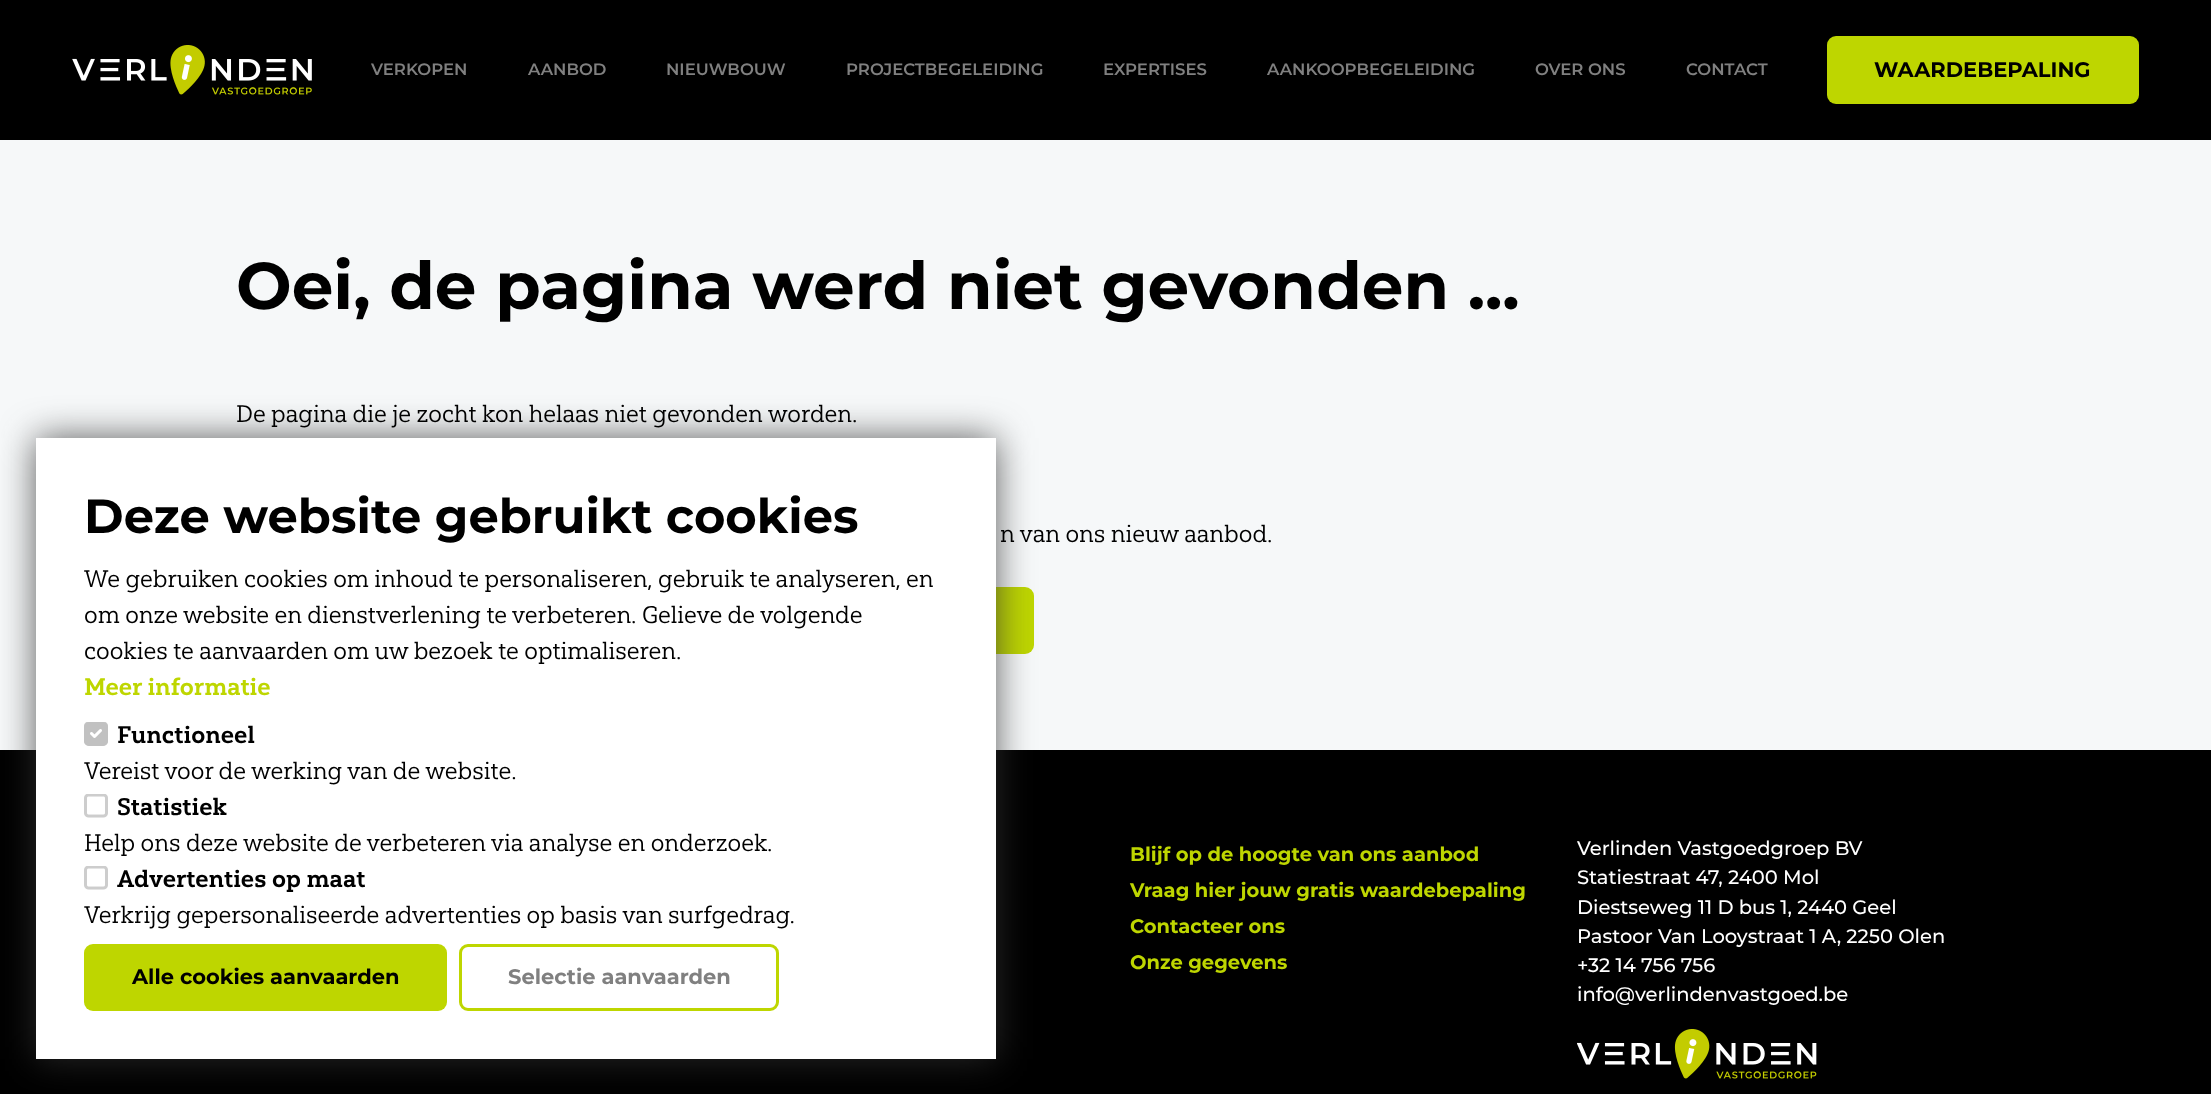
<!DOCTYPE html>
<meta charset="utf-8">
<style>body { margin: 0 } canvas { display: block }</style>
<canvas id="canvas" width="2211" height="1094"></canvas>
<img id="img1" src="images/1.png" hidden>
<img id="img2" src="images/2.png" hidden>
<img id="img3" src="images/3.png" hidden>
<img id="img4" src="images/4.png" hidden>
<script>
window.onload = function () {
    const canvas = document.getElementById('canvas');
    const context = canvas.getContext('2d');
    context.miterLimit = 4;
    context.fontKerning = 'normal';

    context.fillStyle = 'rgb(246, 248, 249)';
    context.fillRect(0, 0, 2211, 1094);
    context.fillStyle = 'rgb(0, 0, 0)';
    context.fillRect(0, 0, 2211, 140);
    context.drawImage(document.getElementById('img1'), 72, 45, 240, 50);
    context.fillStyle = 'rgb(190, 214, 0)';
    context.beginPath();
    context.roundRect(1827, 36, 312, 68, 9);
    context.fill();
    context.beginPath();
    context.roundRect(741, 587, 293, 67, 9);
    context.fill();
    context.fillStyle = 'rgb(0, 0, 0)';
    context.fillRect(0, 750, 2211, 344);
    context.fillStyle = 'rgba(51, 51, 51, 0.8)';
    context.filter = 'blur(18px)';
    context.beginPath();
    context.rect(36, 438, 960, 621);
    context.fill();
    context.filter = 'none';
    context.fillStyle = 'rgb(255, 255, 255)';
    context.fillRect(36, 438, 960, 621);
    context.drawImage(document.getElementById('img2'), 84, 722, 24, 24);
    context.drawImage(document.getElementById('img3'), 84, 722, 24, 24);
    context.drawImage(document.getElementById('img2'), 84, 794, 24, 24);
    context.drawImage(document.getElementById('img2'), 84, 866, 24, 24);
    context.fillStyle = 'rgb(190, 214, 0)';
    context.beginPath();
    context.roundRect(84, 944, 363, 67, 9);
    context.fill();
    context.beginPath();
    context.roundRect(460.5, 945.5, 317, 64, 7.5);
    context.strokeStyle = 'rgb(190, 214, 0)';
    context.lineWidth = 3;
    context.stroke();
    context.drawImage(document.getElementById('img4'), 1577, 1029, 240, 50);
    context.font = '600 16.5px Montserrat';
    context.fillStyle = 'rgb(128, 128, 128)';
    context.fillText('VERKOPEN', 371, 75);
    context.fillText('AANBOD', 528, 75);
    context.fillText('NIEUWBOUW', 666, 75);
    context.fillText('PROJECTBEGELEIDING', 846, 75);
    context.fillText('EXPERTISES', 1103, 75);
    context.fillText('AANKOOPBEGELEIDING', 1267, 75);
    context.fillText('OVER ONS', 1535, 75);
    context.fillText('CONTACT', 1686, 75);
    context.font = 'bold 21px Montserrat';
    context.fillStyle = 'rgb(0, 0, 0)';
    context.fillText('WAARDEBEPALING', 1874, 77);
    context.font = 'bold 66px Montserrat';
    context.fillText('Oei, de pagina werd niet gevonden ...', 236, 309);
    context.font = '500 24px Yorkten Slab';
    context.fillText('De pagina die je zocht kon helaas niet gevonden worden.', 236, 422);
    context.fillText('n van ons nieuw aanbod.', 1000, 542);
    context.font = 'bold 48px Montserrat';
    context.fillText('Deze website gebruikt cookies', 84, 533);
    context.font = '500 24px Yorkten Slab';
    context.fillText('We gebruiken cookies om inhoud te personaliseren, gebruik te analyseren, en', 84, 587);
    context.fillText('om onze website en dienstverlening te verbeteren. Gelieve de volgende', 84, 623);
    context.fillText('cookies te aanvaarden om uw bezoek te optimaliseren.', 84, 659);
    context.font = '800 24px Yorkten Slab';
    context.fillStyle = 'rgb(190, 214, 0)';
    context.fillText('Meer informatie', 84, 695);
    context.fillStyle = 'rgb(0, 0, 0)';
    context.fillText('Functioneel', 117, 743);
    context.font = '500 24px Yorkten Slab';
    context.fillText('Vereist voor de werking van de website.', 84, 779);
    context.font = '800 24px Yorkten Slab';
    context.fillText('Statistiek', 117, 815);
    context.font = '500 24px Yorkten Slab';
    context.fillText('Help ons deze website de verbeteren via analyse en onderzoek.', 84, 851);
    context.font = '800 24px Yorkten Slab';
    context.fillText('Advertenties op maat', 117, 887);
    context.font = '500 24px Yorkten Slab';
    context.fillText('Verkrijg gepersonaliseerde advertenties op basis van surfgedrag.', 84, 923);
    context.font = 'bold 21px Montserrat';
    context.fillText('Alle cookies aanvaarden', 132, 984);
    context.fillStyle = 'rgb(128, 128, 128)';
    context.fillText('Selectie aanvaarden', 508, 984);
    context.font = 'bold 19.5px Montserrat';
    context.fillStyle = 'rgb(190, 214, 0)';
    context.fillText('Blijf op de hoogte van ons aanbod', 1130, 861);
    context.fillText('Vraag hier jouw gratis waardebepaling', 1130, 897);
    context.fillText('Contacteer ons', 1130, 933);
    context.fillText('Onze gegevens', 1130, 969);
    context.font = '500 19.5px Montserrat';
    context.fillStyle = 'rgb(255, 255, 255)';
    context.fillText('Verlinden Vastgoedgroep BV', 1577, 855);
    context.fillText('Statiestraat 47, 2400 Mol', 1577, 884);
    context.fillText('Diestseweg 11 D bus 1, 2440 Geel', 1577, 914);
    context.fillText('Pastoor Van Looystraat 1 A, 2250 Olen', 1577, 943);
    context.fillText('+32 14 756 756', 1577, 972);
    context.fillText('info@verlindenvastgoed.be', 1577, 1001);
};
</script>
